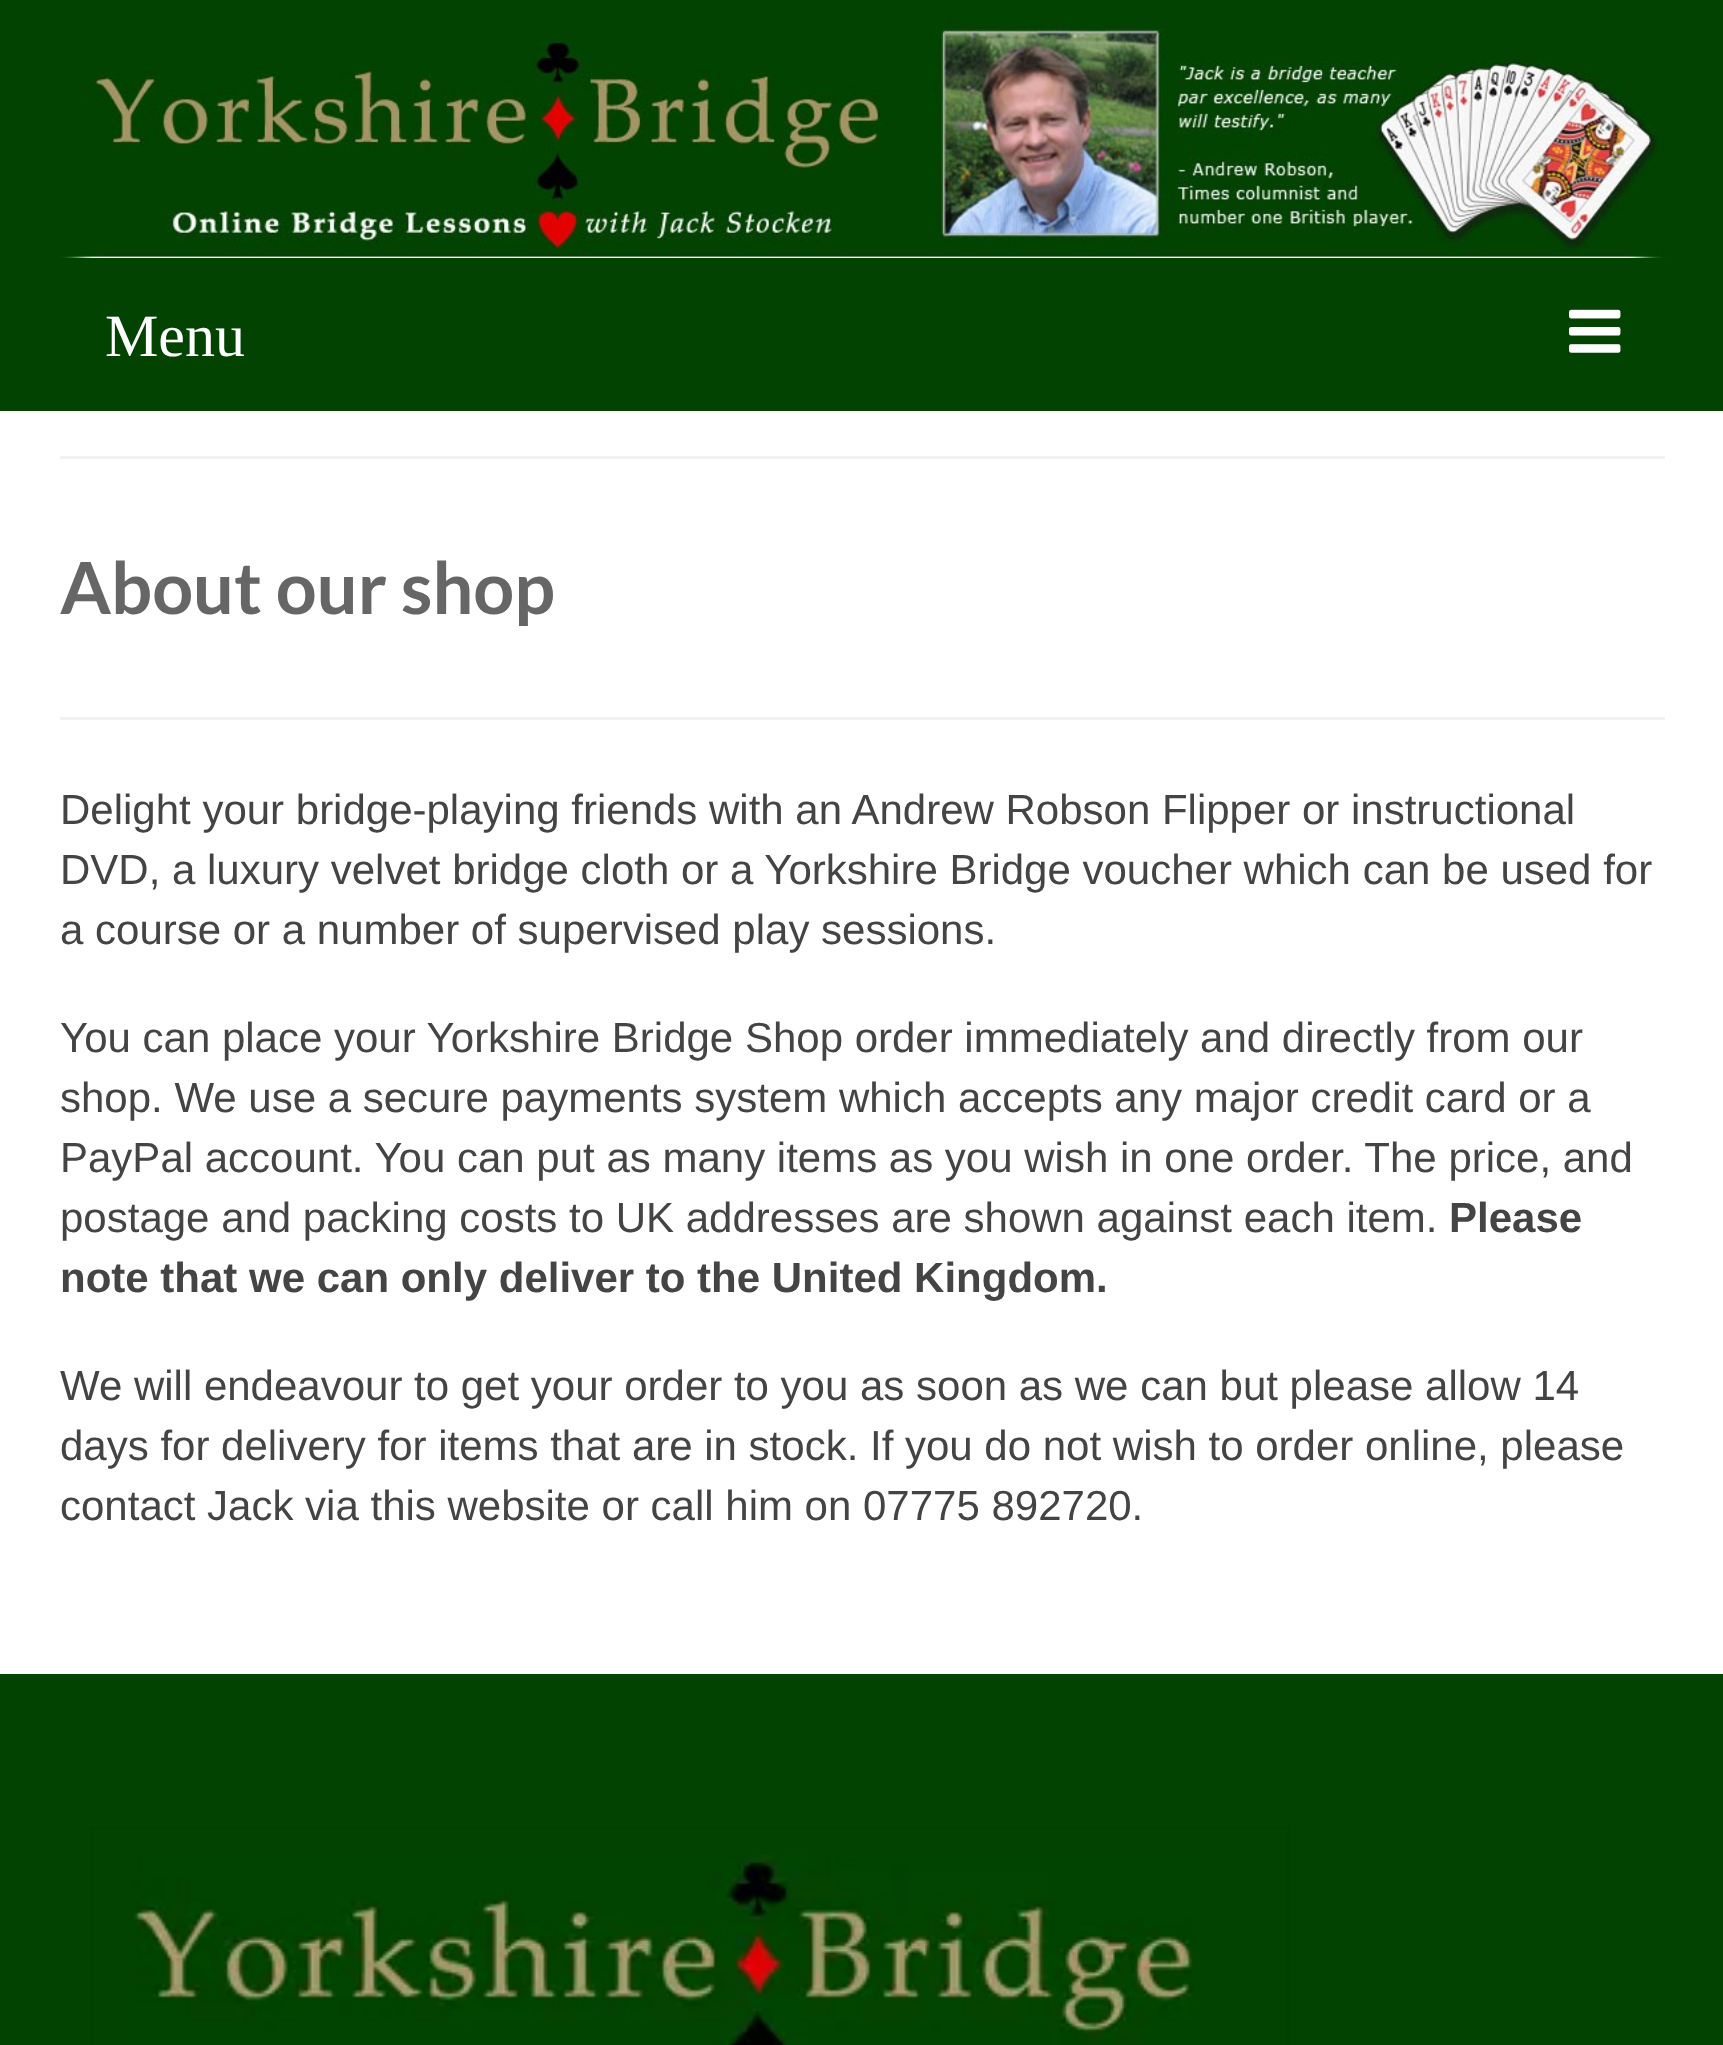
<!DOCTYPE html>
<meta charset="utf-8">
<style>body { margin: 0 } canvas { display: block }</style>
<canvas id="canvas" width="1723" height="2045"></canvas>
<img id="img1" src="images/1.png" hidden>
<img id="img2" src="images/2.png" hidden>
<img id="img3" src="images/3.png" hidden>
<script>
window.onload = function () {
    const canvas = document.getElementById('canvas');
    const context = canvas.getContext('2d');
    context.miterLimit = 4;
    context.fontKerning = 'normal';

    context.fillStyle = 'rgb(255, 255, 255)';
    context.fillRect(0, 0, 1723, 2045);
    context.fillStyle = 'rgb(2, 67, 1)';
    context.fillRect(0, 0, 1723, 411);
    context.drawImage(document.getElementById('img1'), 60, 18, 1605, 240);
    context.drawImage(document.getElementById('img2'), 1569, 309, 52, 44);
    context.fillStyle = 'rgb(242, 242, 242)';
    context.fillRect(60, 456, 1605, 3);
    context.fillRect(60, 717, 1605, 3);
    context.fillStyle = 'rgb(2, 67, 1)';
    context.fillRect(0, 1674, 1723, 371);
    context.strokeStyle = 'rgb(2, 64, 1)';
    context.lineWidth = 3;
    context.strokeRect(91.5, 1828.5, 1197, 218);
    context.drawImage(document.getElementById('img3'), 134, 1854, 1060, 191);
    context.font = '60px Liberation Serif';
    context.fillStyle = 'rgb(255, 255, 255)';
    context.fillText('Menu', 105, 356);
    context.font = 'bold 72px Lato';
    context.fillStyle = 'rgb(102, 102, 102)';
    context.fillText('About our shop', 60, 614);
    context.font = '42px Liberation Sans';
    context.fillStyle = 'rgb(68, 68, 68)';
    context.fillText('Delight your bridge-playing friends with an Andrew Robson Flipper or instructional', 60, 824);
    context.fillText('DVD, a luxury velvet bridge cloth or a Yorkshire Bridge voucher which can be used for', 60, 884);
    context.fillText('a course or a number of supervised play sessions.', 60, 944);
    context.fillText('You can place your Yorkshire Bridge Shop order immediately and directly from our', 60, 1052);
    context.fillText('shop. We use a secure payments system which accepts any major credit card or a', 60, 1112);
    context.fillText('PayPal account. You can put as many items as you wish in one order. The price, and', 60, 1172);
    context.fillText('postage and packing costs to UK addresses are shown against each item.', 60, 1232);
    context.font = 'bold 42px Liberation Sans';
    context.fillText('Please', 1449, 1232);
    context.fillText('note that we can only deliver to the United Kingdom.', 60, 1292);
    context.font = '42px Liberation Sans';
    context.fillText('We will endeavour to get your order to you as soon as we can but please allow 14', 60, 1400);
    context.fillText('days for delivery for items that are in stock. If you do not wish to order online, please', 60, 1460);
    context.fillText('contact Jack via this website or call him on 07775 892720.', 60, 1520);
};
</script>
